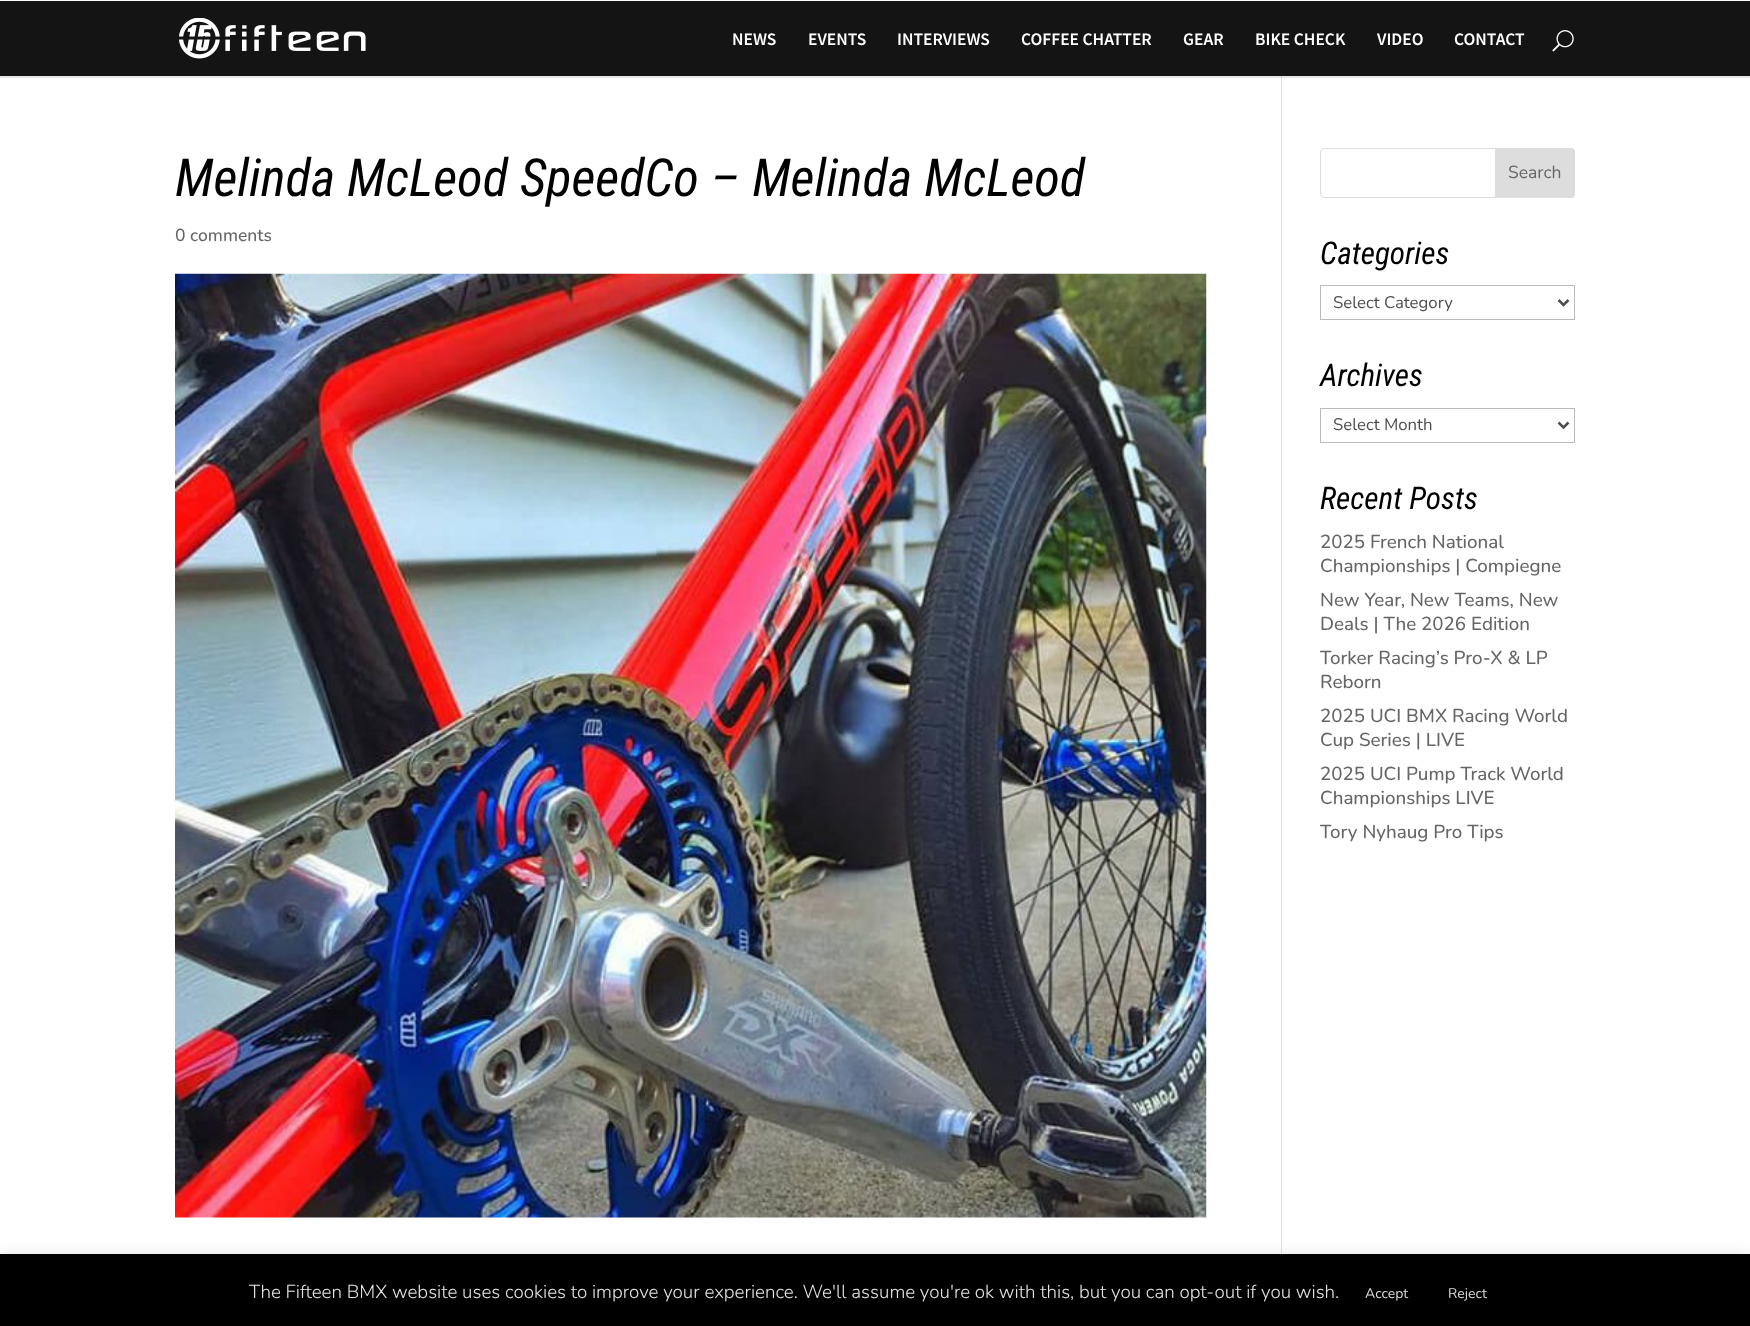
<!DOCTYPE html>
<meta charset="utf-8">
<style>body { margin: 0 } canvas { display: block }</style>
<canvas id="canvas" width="1750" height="1326"></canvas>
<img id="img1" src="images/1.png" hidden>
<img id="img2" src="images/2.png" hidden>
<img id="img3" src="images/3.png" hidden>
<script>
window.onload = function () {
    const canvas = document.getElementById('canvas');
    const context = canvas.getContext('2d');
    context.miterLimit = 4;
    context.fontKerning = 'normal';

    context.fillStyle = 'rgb(255, 255, 255)';
    context.fillRect(0, 0, 1750, 1326);
    context.fillStyle = 'rgb(230, 230, 230)';
    context.fillRect(0, 76, 1750, 2);
    context.fillStyle = 'rgb(226, 226, 226)';
    context.fillRect(1281, 75, 1, 1179);
    context.fillStyle = 'rgb(20, 20, 20)';
    context.fillRect(0, 1, 1750, 75);
    context.drawImage(document.getElementById('img1'), 179, 18, 187, 41);
    context.drawImage(document.getElementById('img2'), 1552, 30, 22, 22);
    context.fillStyle = 'rgb(203, 203, 203)';
    context.fillRect(1281, 76, 1, 2);
    context.drawImage(document.getElementById('img3'), 175, 273, 1032, 945);
    context.beginPath();
    context.roundRect(1320.5, 148.5, 254, 49, 3.5);
    context.strokeStyle = 'rgb(221, 221, 221)';
    context.stroke();
    context.fillStyle = 'rgb(221, 221, 221)';
    context.beginPath();
    context.roundRect(1495.5, 148.5, 79, 49, [0, 3.5, 3.5, 0]);
    context.fill();
    context.stroke();
    context.strokeStyle = 'rgb(187, 187, 187)';
    context.strokeRect(1320.5, 285.5, 254, 34);
    context.beginPath();
    context.moveTo(1558.5, 300);
    context.lineTo(1563.5, 305);
    context.lineTo(1568.5, 300);
    context.strokeStyle = 'rgb(78, 78, 78)';
    context.lineWidth = 2.5;
    context.stroke();
    context.strokeStyle = 'rgb(187, 187, 187)';
    context.lineWidth = 1;
    context.strokeRect(1320.5, 408.5, 254, 34);
    context.beginPath();
    context.moveTo(1558.5, 422.5);
    context.lineTo(1563.5, 427.5);
    context.lineTo(1568.5, 422.5);
    context.strokeStyle = 'rgb(78, 78, 78)';
    context.lineWidth = 2.5;
    context.stroke();
    context.fillStyle = 'rgba(172, 171, 171, 0.3)';
    context.filter = 'blur(6px)';
    context.beginPath();
    context.rect(0, 1253, 1750, 72);
    context.fill();
    context.filter = 'none';
    context.fillStyle = 'rgb(0, 0, 0)';
    context.fillRect(0, 1254, 1750, 72);
    context.font = '600 17.5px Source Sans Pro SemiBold';
    context.fillStyle = 'rgb(255, 255, 255)';
    context.fillText('NEWS', 732, 45);
    context.fillText('EVENTS', 808, 45);
    context.fillText('INTERVIEWS', 897, 45);
    context.fillText('COFFEE CHATTER', 1021, 45);
    context.fillText('GEAR', 1183, 45);
    context.fillText('BIKE CHECK', 1255, 45);
    context.fillText('VIDEO', 1377, 45);
    context.fillText('CONTACT', 1454, 45);
    context.font = 'italic 52.5px Roboto Condensed';
    context.fillStyle = 'rgb(0, 0, 0)';
    context.fillText('Melinda McLeod SpeedCo – Melinda McLeod', 175, 196);
    context.font = '200 17.5px Nunito';
    context.fillStyle = 'rgb(102, 102, 102)';
    context.fillText('0 comments', 175, 241);
    context.font = '200 17.5px "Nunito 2"';
    context.fillText('Search', 1508, 178);
    context.font = 'italic 31.25px Roboto Condensed';
    context.fillStyle = 'rgb(0, 0, 0)';
    context.fillText('Categories', 1320, 264);
    context.font = '200 16.75px "Nunito 2"';
    context.fillStyle = 'rgb(78, 78, 78)';
    context.fillText('Select Category', 1333, 308);
    context.font = 'italic 31.25px Roboto Condensed';
    context.fillStyle = 'rgb(0, 0, 0)';
    context.fillText('Archives', 1320, 386);
    context.font = '200 16.75px "Nunito 2"';
    context.fillStyle = 'rgb(78, 78, 78)';
    context.fillText('Select Month', 1333, 430);
    context.font = 'italic 31.25px Roboto Condensed';
    context.fillStyle = 'rgb(0, 0, 0)';
    context.fillText('Recent Posts', 1320, 509);
    context.font = '200 18.75px Nunito';
    context.fillStyle = 'rgb(102, 102, 102)';
    context.fillText('2025 French National', 1320, 548);
    context.fillText('Championships | Compiegne', 1320, 572);
    context.fillText('New Year, New Teams, New', 1320, 606);
    context.fillText('Deals | The 2026 Edition', 1320, 630);
    context.fillText('Torker Racing’s Pro-X & LP', 1320, 664);
    context.fillText('Reborn', 1320, 688);
    context.fillText('2025 UCI BMX Racing World', 1320, 722);
    context.fillText('Cup Series | LIVE', 1320, 746);
    context.fillText('2025 UCI Pump Track World', 1320, 780);
    context.fillText('Championships LIVE', 1320, 804);
    context.fillText('Tory Nyhaug Pro Tips', 1320, 838);
    context.font = '200 18.75px "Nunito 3"';
    context.fillStyle = 'rgb(226, 226, 226)';
    context.fillText('The Fifteen BMX website uses cookies to improve your experience. We\'ll assume you\'re ok with this, but you can opt-out if you wish.', 249, 1298);
    context.font = '200 14px "Nunito 2"';
    context.fillStyle = 'rgb(219, 219, 219)';
    context.fillText('Accept', 1365, 1298);
    context.fillText('Reject', 1448, 1298);
};
</script>
